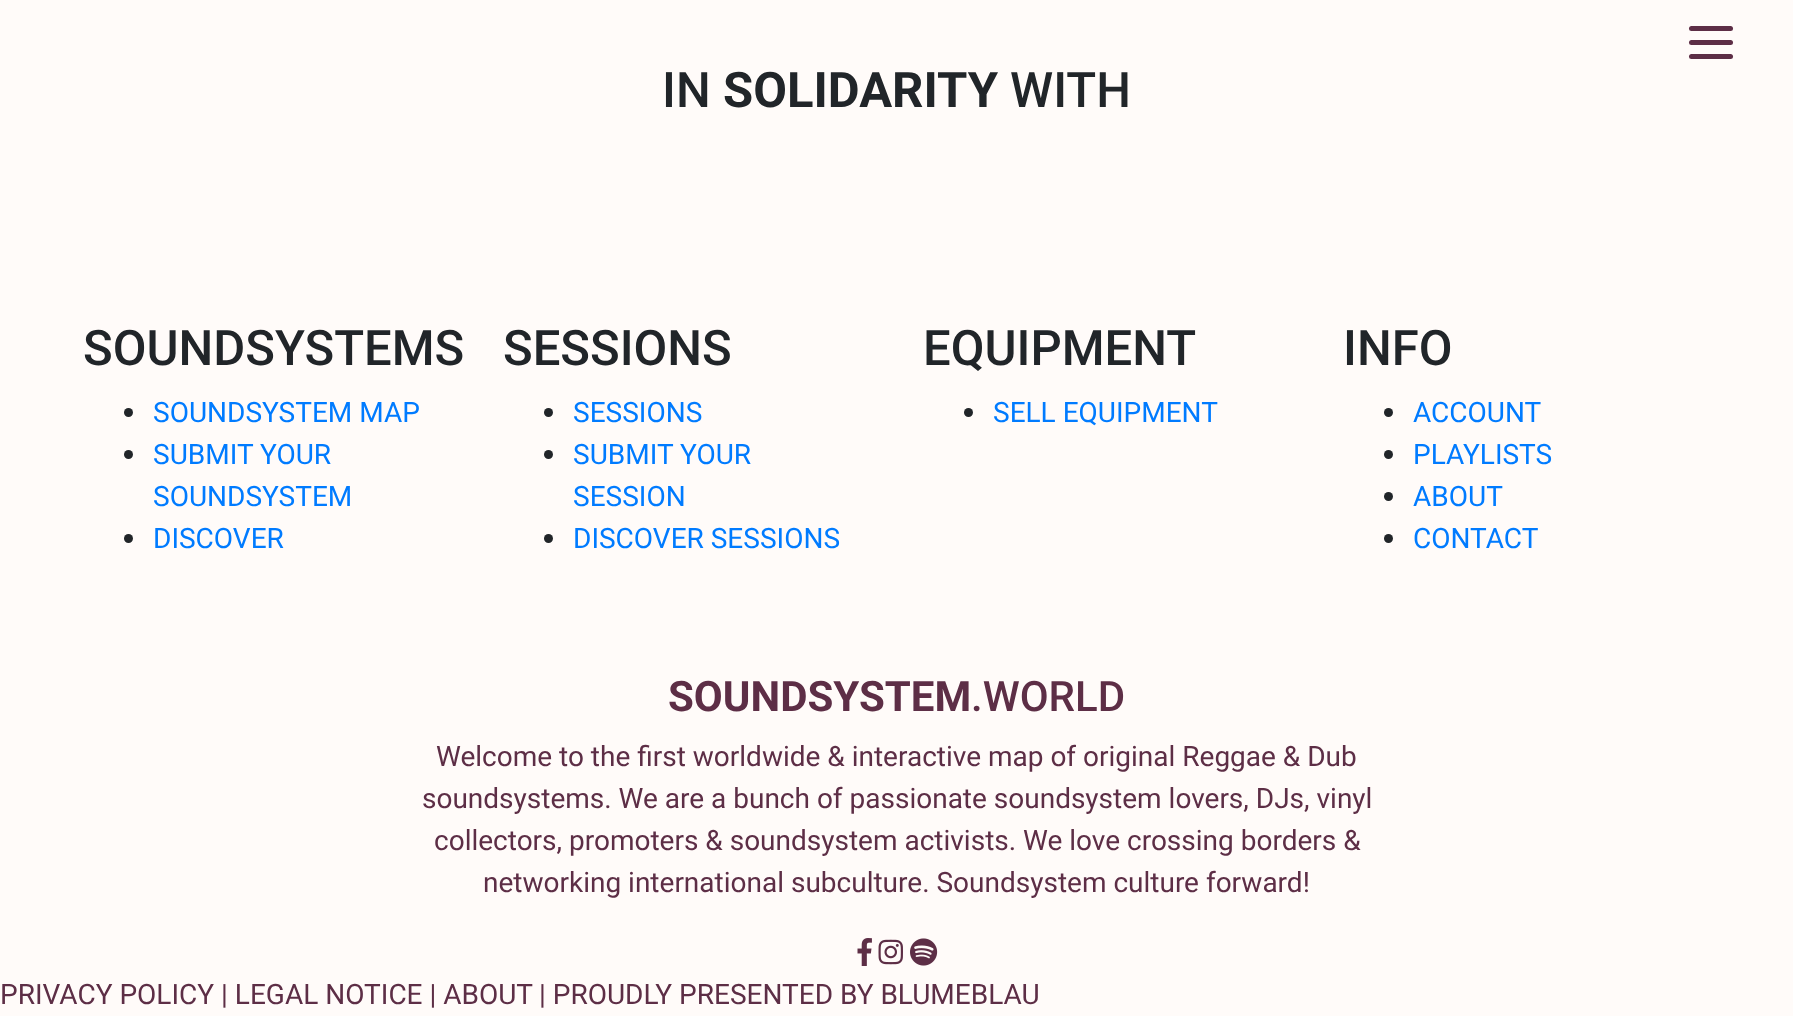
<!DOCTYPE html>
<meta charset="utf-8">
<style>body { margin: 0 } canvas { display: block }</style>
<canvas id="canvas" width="1793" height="1016"></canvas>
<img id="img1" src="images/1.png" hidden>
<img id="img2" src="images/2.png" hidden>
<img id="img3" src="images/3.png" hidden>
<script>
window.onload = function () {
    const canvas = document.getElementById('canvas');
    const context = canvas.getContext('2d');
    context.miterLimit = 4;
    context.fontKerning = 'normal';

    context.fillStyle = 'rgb(255, 251, 249)';
    context.fillRect(0, 0, 1793, 1016);
    context.fillStyle = 'rgb(93, 46, 70)';
    context.beginPath();
    context.roundRect(1689, 54, 44, 5, 2.5);
    context.fill();
    context.beginPath();
    context.roundRect(1689, 26, 44, 5, 2.5);
    context.fill();
    context.beginPath();
    context.roundRect(1689, 40, 44, 5, 2.5);
    context.fill();
    context.fillStyle = 'rgb(33, 37, 41)';
    context.beginPath();
    context.arc(128.5, 412.5, 4.5, 0, 2 * Math.PI);
    context.fill();
    context.beginPath();
    context.arc(128.5, 454.5, 4.5, 0, 2 * Math.PI);
    context.fill();
    context.beginPath();
    context.arc(128.5, 538.5, 4.5, 0, 2 * Math.PI);
    context.fill();
    context.beginPath();
    context.arc(548.5, 412.5, 4.5, 0, 2 * Math.PI);
    context.fill();
    context.beginPath();
    context.arc(548.5, 454.5, 4.5, 0, 2 * Math.PI);
    context.fill();
    context.beginPath();
    context.arc(548.5, 538.5, 4.5, 0, 2 * Math.PI);
    context.fill();
    context.beginPath();
    context.arc(968.5, 412.5, 4.5, 0, 2 * Math.PI);
    context.fill();
    context.beginPath();
    context.arc(1388.5, 412.5, 4.5, 0, 2 * Math.PI);
    context.fill();
    context.beginPath();
    context.arc(1388.5, 454.5, 4.5, 0, 2 * Math.PI);
    context.fill();
    context.beginPath();
    context.arc(1388.5, 496.5, 4.5, 0, 2 * Math.PI);
    context.fill();
    context.beginPath();
    context.arc(1388.5, 538.5, 4.5, 0, 2 * Math.PI);
    context.fill();
    context.drawImage(document.getElementById('img1'), 857, 938, 15, 28);
    context.drawImage(document.getElementById('img2'), 878, 939, 25, 26);
    context.drawImage(document.getElementById('img3'), 910, 938, 28, 28);
    context.font = '500 49px Roboto';
    context.fillText('IN', 662, 107);
    context.font = 'bold 49px Roboto';
    context.fillText('SOLIDARITY', 723, 107);
    context.font = '500 49px Roboto';
    context.fillText('WITH', 1010, 107);
    context.fillText('SOUNDSYSTEMS', 83, 365);
    context.font = '28px Roboto';
    context.fillStyle = 'rgb(0, 123, 255)';
    context.fillText('SOUNDSYSTEM MAP', 153, 422);
    context.fillText('SUBMIT YOUR', 153, 464);
    context.fillText('SOUNDSYSTEM', 153, 506);
    context.fillText('DISCOVER', 153, 548);
    context.font = '500 49px Roboto';
    context.fillStyle = 'rgb(33, 37, 41)';
    context.fillText('SESSIONS', 503, 365);
    context.font = '28px Roboto';
    context.fillStyle = 'rgb(0, 123, 255)';
    context.fillText('SESSIONS', 573, 422);
    context.fillText('SUBMIT YOUR', 573, 464);
    context.fillText('SESSION', 573, 506);
    context.fillText('DISCOVER SESSIONS', 573, 548);
    context.font = '500 49px Roboto';
    context.fillStyle = 'rgb(33, 37, 41)';
    context.fillText('EQUIPMENT', 923, 365);
    context.font = '28px Roboto';
    context.fillStyle = 'rgb(0, 123, 255)';
    context.fillText('SELL EQUIPMENT', 993, 422);
    context.font = '500 49px Roboto';
    context.fillStyle = 'rgb(33, 37, 41)';
    context.fillText('INFO', 1343, 365);
    context.font = '28px Roboto';
    context.fillStyle = 'rgb(0, 123, 255)';
    context.fillText('ACCOUNT', 1413, 422);
    context.fillText('PLAYLISTS', 1413, 464);
    context.fillText('ABOUT', 1413, 506);
    context.fillText('CONTACT', 1413, 548);
    context.font = 'bold 42px Roboto';
    context.fillStyle = 'rgb(93, 46, 70)';
    context.fillText('SOUNDSYSTEM', 668, 711);
    context.font = '500 42px Roboto';
    context.fillText('.WORLD', 971, 711);
    context.font = '28px Roboto';
    context.fillText('Welcome to the first worldwide & interactive map of original Reggae & Dub', 436, 766);
    context.fillText('soundsystems. We are a bunch of passionate soundsystem lovers, DJs, vinyl', 422, 808);
    context.fillText('collectors, promoters & soundsystem activists. We love crossing borders &', 434, 850);
    context.fillText('networking international subculture. Soundsystem culture forward!', 483, 892);
    context.fillText('PRIVACY POLICY | LEGAL NOTICE | ABOUT', 0, 1004);
    context.fillText('| PROUDLY PRESENTED BY BLUMEBLAU', 539, 1004);
};
</script>
